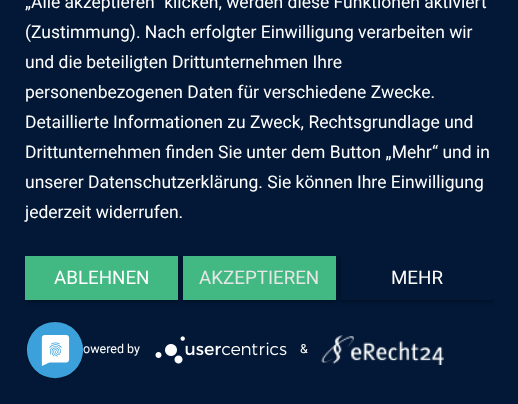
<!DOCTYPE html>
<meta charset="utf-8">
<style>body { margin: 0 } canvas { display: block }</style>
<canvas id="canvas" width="518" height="404"></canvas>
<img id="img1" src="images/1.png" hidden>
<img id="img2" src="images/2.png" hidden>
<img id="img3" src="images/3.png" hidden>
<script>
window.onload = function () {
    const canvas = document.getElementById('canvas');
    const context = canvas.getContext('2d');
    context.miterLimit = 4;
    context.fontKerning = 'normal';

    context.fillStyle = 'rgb(2, 24, 54)';
    context.fillRect(0, 0, 518, 404);
    context.save();
    context.beginPath();
    context.rect(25, 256, 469, 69);
    context.clip();
    context.fillStyle = 'rgba(0, 0, 0, 0.4)';
    context.filter = 'blur(2.5px)';
    context.beginPath();
    context.rect(25, 258, 153, 43);
    context.fill();
    context.filter = 'none';
    context.restore();
    context.fillStyle = 'rgb(66, 185, 131)';
    context.fillRect(25, 256, 153, 44);
    context.save();
    context.beginPath();
    context.rect(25, 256, 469, 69);
    context.clip();
    context.fillStyle = 'rgba(0, 0, 0, 0.4)';
    context.filter = 'blur(2.5px)';
    context.beginPath();
    context.rect(183, 258, 153, 43);
    context.fill();
    context.filter = 'none';
    context.restore();
    context.fillRect(183, 256, 153, 44);
    context.save();
    context.beginPath();
    context.rect(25, 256, 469, 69);
    context.clip();
    context.fillStyle = 'rgba(0, 0, 0, 0.4)';
    context.filter = 'blur(2.5px)';
    context.beginPath();
    context.rect(341, 258, 153, 43);
    context.fill();
    context.filter = 'none';
    context.restore();
    context.fillStyle = 'rgb(2, 24, 54)';
    context.fillRect(341, 256, 153, 44);
    context.drawImage(document.getElementById('img1'), 155, 336, 132, 28);
    context.drawImage(document.getElementById('img2'), 321, 335, 123, 30);
    context.font = '17.5px Roboto';
    context.fillStyle = 'rgb(255, 255, 255)';
    context.fillText('„Alle akzeptieren“ klicken, werden diese Funktionen aktiviert', 25, 8);
    context.fillText('(Zustimmung). Nach erfolgter Einwilligung verarbeiten wir', 25, 38);
    context.fillText('und die beteiligten Drittunternehmen Ihre', 25, 68);
    context.fillText('personenbezogenen Daten für verschiedene Zwecke.', 25, 98);
    context.fillText('Detaillierte Informationen zu Zweck, Rechtsgrundlage und', 25, 128);
    context.fillText('Drittunternehmen finden Sie unter dem Button „Mehr“ und in', 25, 158);
    context.fillText('unserer Datenschutzerklärung. Sie können Ihre Einwilligung', 25, 188);
    context.fillText('jederzeit widerrufen.', 25, 218);
    context.font = '18.75px Roboto';
    context.fillText('ABLEHNEN', 54, 284);
    context.fillStyle = 'rgb(230, 230, 230)';
    context.fillText('AKZEPTIEREN', 199, 284);
    context.fillStyle = 'rgb(255, 255, 255)';
    context.fillText('MEHR', 391, 284);
    context.font = '12.5px Roboto';
    context.fillText('owered by', 83, 353);
    context.fillText('&', 300, 353);
    context.drawImage(document.getElementById('img3'), 26, 321, 59, 58);
};
</script>
